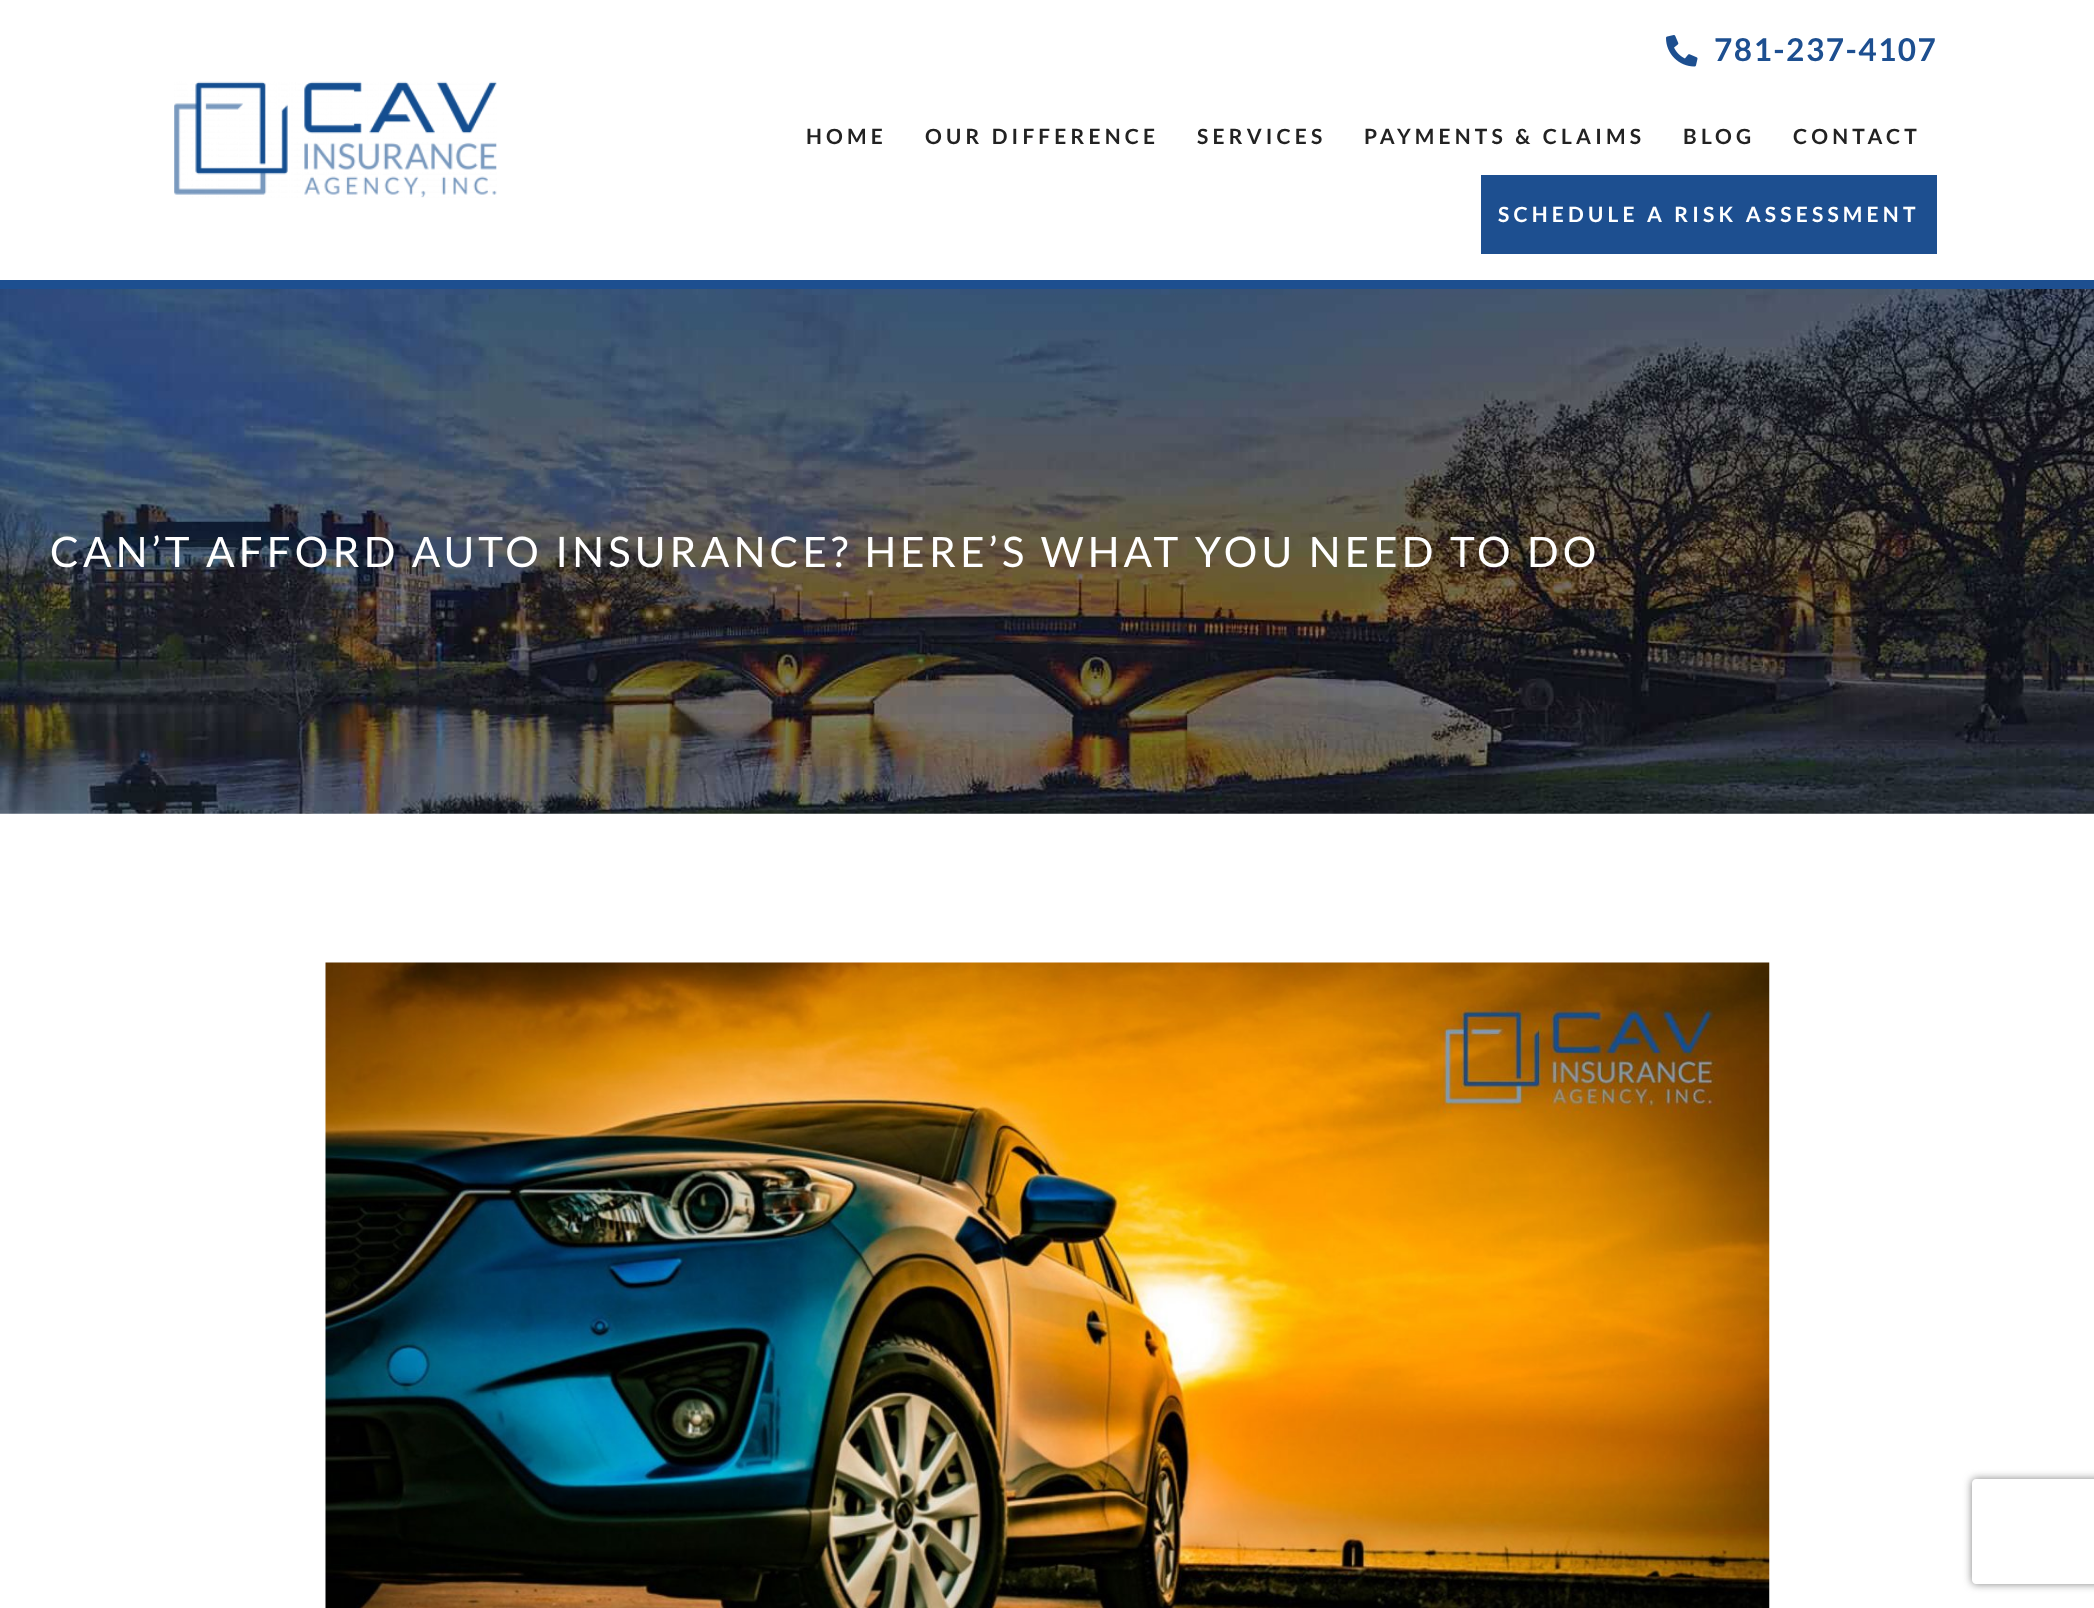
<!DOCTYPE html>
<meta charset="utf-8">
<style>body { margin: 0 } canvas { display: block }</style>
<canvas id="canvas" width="2094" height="1608"></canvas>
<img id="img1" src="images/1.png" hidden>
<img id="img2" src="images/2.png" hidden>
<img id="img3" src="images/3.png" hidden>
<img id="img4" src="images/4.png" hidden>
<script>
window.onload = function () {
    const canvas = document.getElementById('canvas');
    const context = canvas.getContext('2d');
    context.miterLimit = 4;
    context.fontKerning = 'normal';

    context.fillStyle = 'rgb(255, 255, 255)';
    context.fillRect(0, 0, 2094, 1608);
    context.fillStyle = 'rgb(29, 79, 144)';
    context.fillRect(0, 280, 2094, 9);
    context.drawImage(document.getElementById('img1'), 174, 81, 323, 117);
    context.drawImage(document.getElementById('img2'), 1666, 35, 32, 32);
    context.fillRect(1481, 175, 456, 79);
    context.drawImage(document.getElementById('img3'), 0, 289, 2094, 525);
    context.drawImage(document.getElementById('img4'), 325, 962, 1445, 646);
    context.save();
    context.beginPath();
    context.moveTo(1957, 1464);
    context.lineTo(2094, 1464);
    context.lineTo(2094, 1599);
    context.lineTo(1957, 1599);
    context.closePath();
    context.moveTo(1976, 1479);
    context.lineTo(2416, 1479);
    context.bezierCurveTo(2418, 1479, 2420, 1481, 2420, 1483);
    context.lineTo(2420, 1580);
    context.bezierCurveTo(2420, 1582, 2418, 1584, 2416, 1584);
    context.lineTo(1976, 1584);
    context.bezierCurveTo(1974, 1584, 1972, 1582, 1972, 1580);
    context.lineTo(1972, 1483);
    context.bezierCurveTo(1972, 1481, 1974, 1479, 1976, 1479);
    context.closePath();
    context.clip('evenodd');
    context.fillStyle = 'rgb(128, 128, 128)';
    context.filter = 'blur(4.5px)';
    context.beginPath();
    context.roundRect(1972, 1479, 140, 105, 4);
    context.fill();
    context.filter = 'none';
    context.restore();
    context.letterSpacing = '1.5px';
    context.font = 'bold 31.5px Lato';
    context.fillText('781-237-4107', 1714, 61);
    context.letterSpacing = '4.2px';
    context.font = 'bold 21px Lato';
    context.fillStyle = 'rgb(34, 34, 34)';
    context.fillText('HOME', 806, 144);
    context.fillText('OUR DIFFERENCE', 925, 144);
    context.fillText('SERVICES', 1197, 144);
    context.fillText('PAYMENTS & CLAIMS', 1364, 144);
    context.fillText('BLOG', 1683, 144);
    context.fillText('CONTACT', 1793, 144);
    context.fillStyle = 'rgb(255, 255, 255)';
    context.fillText('SCHEDULE A RISK ASSESSMENT', 1498, 222);
    context.font = '42px Lato';
    context.fillText('CAN’T AFFORD AUTO INSURANCE? HERE’S WHAT YOU NEED TO DO', 50, 567);
};
</script>
